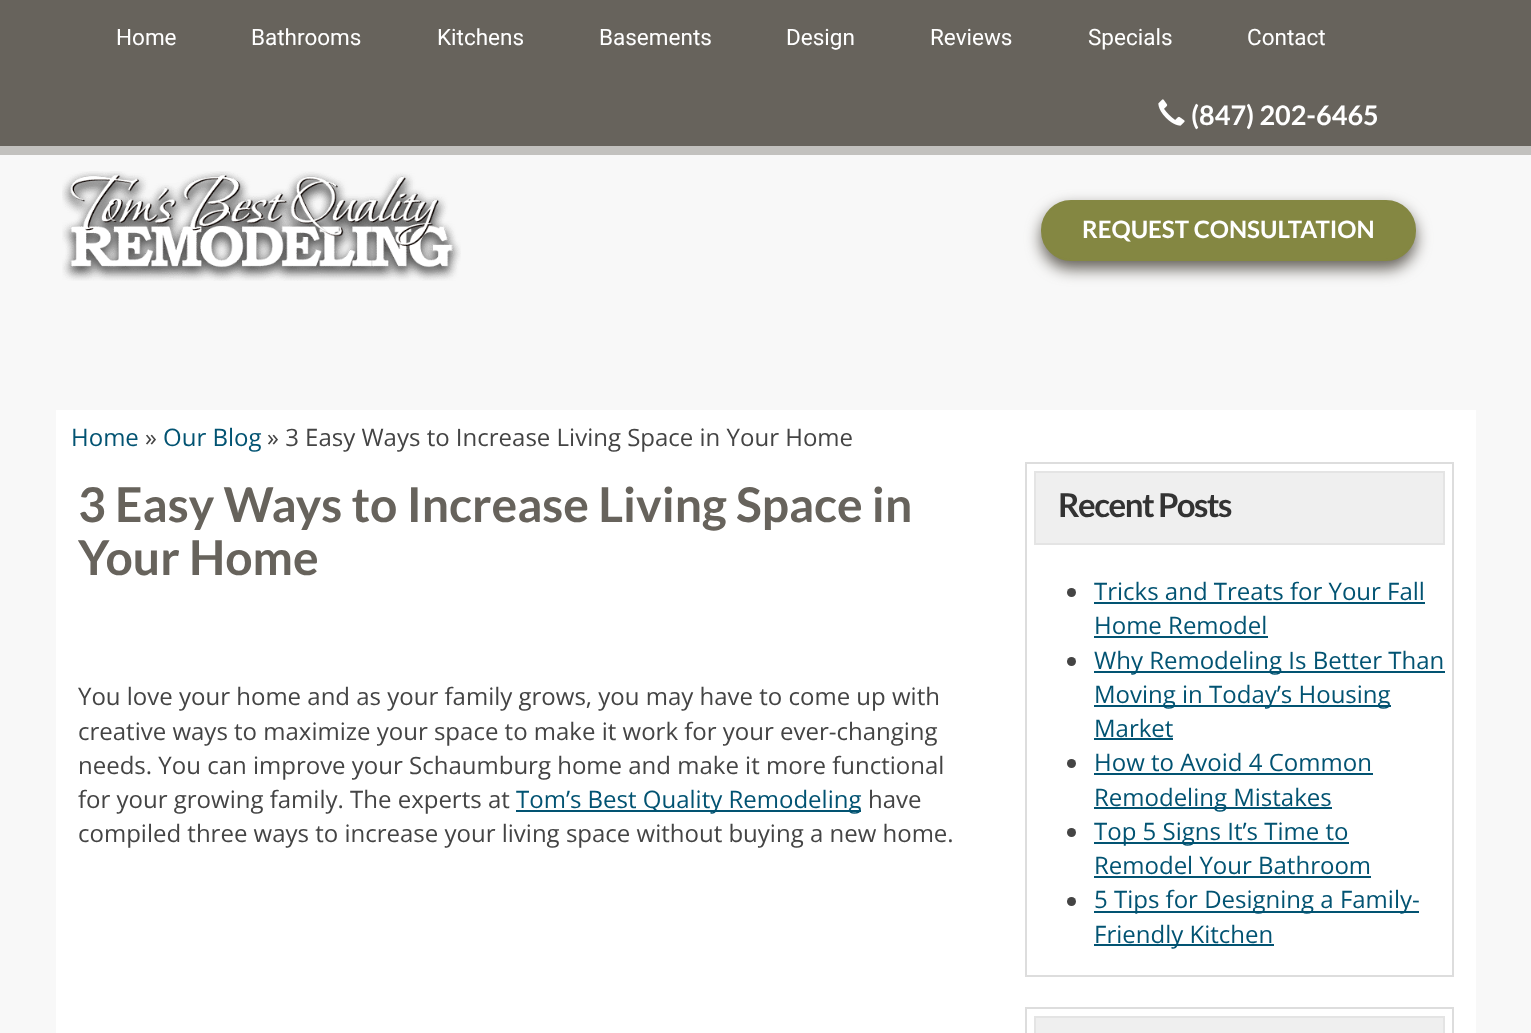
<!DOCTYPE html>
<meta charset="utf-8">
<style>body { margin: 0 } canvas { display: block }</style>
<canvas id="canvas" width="1531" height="1033"></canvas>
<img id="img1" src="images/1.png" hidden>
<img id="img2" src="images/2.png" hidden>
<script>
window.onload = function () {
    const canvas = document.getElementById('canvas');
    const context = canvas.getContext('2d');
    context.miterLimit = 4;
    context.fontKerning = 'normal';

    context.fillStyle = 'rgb(248, 248, 248)';
    context.fillRect(0, 0, 1531, 1033);
    context.fillStyle = 'rgb(103, 99, 92)';
    context.fillRect(0, 0, 1531, 146);
    context.fillStyle = 'rgb(194, 193, 190)';
    context.fillRect(0, 146, 1531, 9);
    context.drawImage(document.getElementById('img1'), 1158, 99, 27, 27);
    context.drawImage(document.getElementById('img2'), 62, 171, 399, 110);
    context.fillStyle = 'rgb(103, 99, 92)';
    context.filter = 'blur(7.5px)';
    context.beginPath();
    context.roundRect(1041, 207, 375, 62, 30);
    context.fill();
    context.filter = 'none';
    context.fillStyle = 'rgb(132, 135, 66)';
    context.beginPath();
    context.roundRect(1042, 201, 373, 59, 29);
    context.fill();
    context.strokeStyle = 'rgb(132, 135, 66)';
    context.lineWidth = 2;
    context.stroke();
    context.fillStyle = 'rgb(255, 255, 255)';
    context.fillRect(56, 410, 1420, 623);
    context.fillStyle = 'rgb(2, 83, 114)';
    context.fillRect(516, 810, 345, 2);
    context.strokeStyle = 'rgb(221, 221, 221)';
    context.strokeRect(1026, 463, 427, 513);
    context.fillStyle = 'rgb(239, 239, 239)';
    context.beginPath();
    context.rect(1035, 472, 409, 72);
    context.fill();
    context.strokeStyle = 'rgb(228, 228, 228)';
    context.stroke();
    context.fillStyle = 'rgb(68, 68, 68)';
    context.beginPath();
    context.arc(1071.5, 592.5, 4.5, 0, 2 * Math.PI);
    context.fill();
    context.fillStyle = 'rgb(2, 83, 114)';
    context.fillRect(1094, 602, 331, 2);
    context.fillRect(1094, 636, 174, 2);
    context.fillStyle = 'rgb(68, 68, 68)';
    context.beginPath();
    context.arc(1071.5, 661.5, 4.5, 0, 2 * Math.PI);
    context.fill();
    context.fillStyle = 'rgb(2, 83, 114)';
    context.fillRect(1094, 671, 351, 2);
    context.fillRect(1094, 705, 297, 2);
    context.fillRect(1094, 738, 79, 2);
    context.fillStyle = 'rgb(68, 68, 68)';
    context.beginPath();
    context.arc(1071.5, 763.5, 4.5, 0, 2 * Math.PI);
    context.fill();
    context.fillStyle = 'rgb(2, 83, 114)';
    context.fillRect(1094, 773, 279, 2);
    context.fillRect(1094, 807, 238, 2);
    context.fillStyle = 'rgb(68, 68, 68)';
    context.beginPath();
    context.arc(1071.5, 832.5, 4.5, 0, 2 * Math.PI);
    context.fill();
    context.fillStyle = 'rgb(2, 83, 114)';
    context.fillRect(1094, 842, 255, 2);
    context.fillRect(1094, 876, 277, 2);
    context.fillStyle = 'rgb(68, 68, 68)';
    context.beginPath();
    context.arc(1071.5, 901.5, 4.5, 0, 2 * Math.PI);
    context.fill();
    context.fillStyle = 'rgb(2, 83, 114)';
    context.fillRect(1094, 911, 325, 2);
    context.fillRect(1094, 944, 180, 2);
    context.strokeStyle = 'rgb(221, 221, 221)';
    context.strokeRect(1026, 1008, 427, 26);
    context.fillStyle = 'rgb(239, 239, 239)';
    context.beginPath();
    context.rect(1035, 1017, 409, 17);
    context.fill();
    context.strokeStyle = 'rgb(228, 228, 228)';
    context.stroke();
    context.font = '22.5px Roboto';
    context.fillStyle = 'rgb(255, 255, 255)';
    context.fillText('Home', 116, 45);
    context.fillText('Bathrooms', 251, 45);
    context.fillText('Kitchens', 437, 45);
    context.fillText('Basements', 599, 45);
    context.fillText('Design', 786, 45);
    context.fillText('Reviews', 930, 45);
    context.fillText('Specials', 1088, 45);
    context.fillText('Contact', 1247, 45);
    context.font = 'bold 27px Lato';
    context.fillText('(847) 202-6465', 1191, 125);
    context.font = 'bold 24px Lato';
    context.fillText('REQUEST CONSULTATION', 1082, 238);
    context.font = '24px Open Sans';
    context.fillStyle = 'rgb(2, 83, 114)';
    context.fillText('Home', 71, 446);
    context.fillStyle = 'rgb(68, 68, 68)';
    context.fillText('»', 145, 446);
    context.fillStyle = 'rgb(2, 83, 114)';
    context.fillText('Our Blog', 163, 446);
    context.fillStyle = 'rgb(68, 68, 68)';
    context.fillText('» 3 Easy Ways to Increase Living Space in Your Home', 267, 446);
    context.font = 'bold 48px Lato';
    context.fillStyle = 'rgb(103, 99, 92)';
    context.fillText('3 Easy Ways to Increase Living Space in', 78, 522);
    context.fillText('Your Home', 78, 575);
    context.font = '24px Open Sans';
    context.fillStyle = 'rgb(68, 68, 68)';
    context.fillText('You love your home and as your family grows, you may have to come up with', 78, 705);
    context.fillText('creative ways to maximize your space to make it work for your ever-changing', 78, 740);
    context.fillText('needs. You can improve your Schaumburg home and make it more functional', 78, 774);
    context.fillText('for your growing family. The experts at', 78, 808);
    context.fillStyle = 'rgb(2, 83, 114)';
    context.fillText('Tom’s Best Quality Remodeling', 516, 808);
    context.fillStyle = 'rgb(68, 68, 68)';
    context.fillText('have', 868, 808);
    context.fillText('compiled three ways to increase your living space without buying a new home.', 78, 842);
    context.letterSpacing = '-1.5px';
    context.font = 'bold 33px Lato';
    context.fillStyle = 'rgb(51, 51, 51)';
    context.fillText('Recent Posts', 1058, 517);
    context.letterSpacing = '0px';
    context.font = '24px Open Sans';
    context.fillStyle = 'rgb(2, 83, 114)';
    context.fillText('Tricks and Treats for Your Fall', 1094, 600);
    context.fillText('Home Remodel', 1094, 634);
    context.fillText('Why Remodeling Is Better Than', 1094, 669);
    context.fillText('Moving in Today’s Housing', 1094, 703);
    context.fillText('Market', 1094, 737);
    context.fillText('How to Avoid 4 Common', 1094, 771);
    context.fillText('Remodeling Mistakes', 1094, 806);
    context.fillText('Top 5 Signs It’s Time to', 1094, 840);
    context.fillText('Remodel Your Bathroom', 1094, 874);
    context.fillText('5 Tips for Designing a Family-', 1094, 908);
    context.fillText('Friendly Kitchen', 1094, 943);
};
</script>
